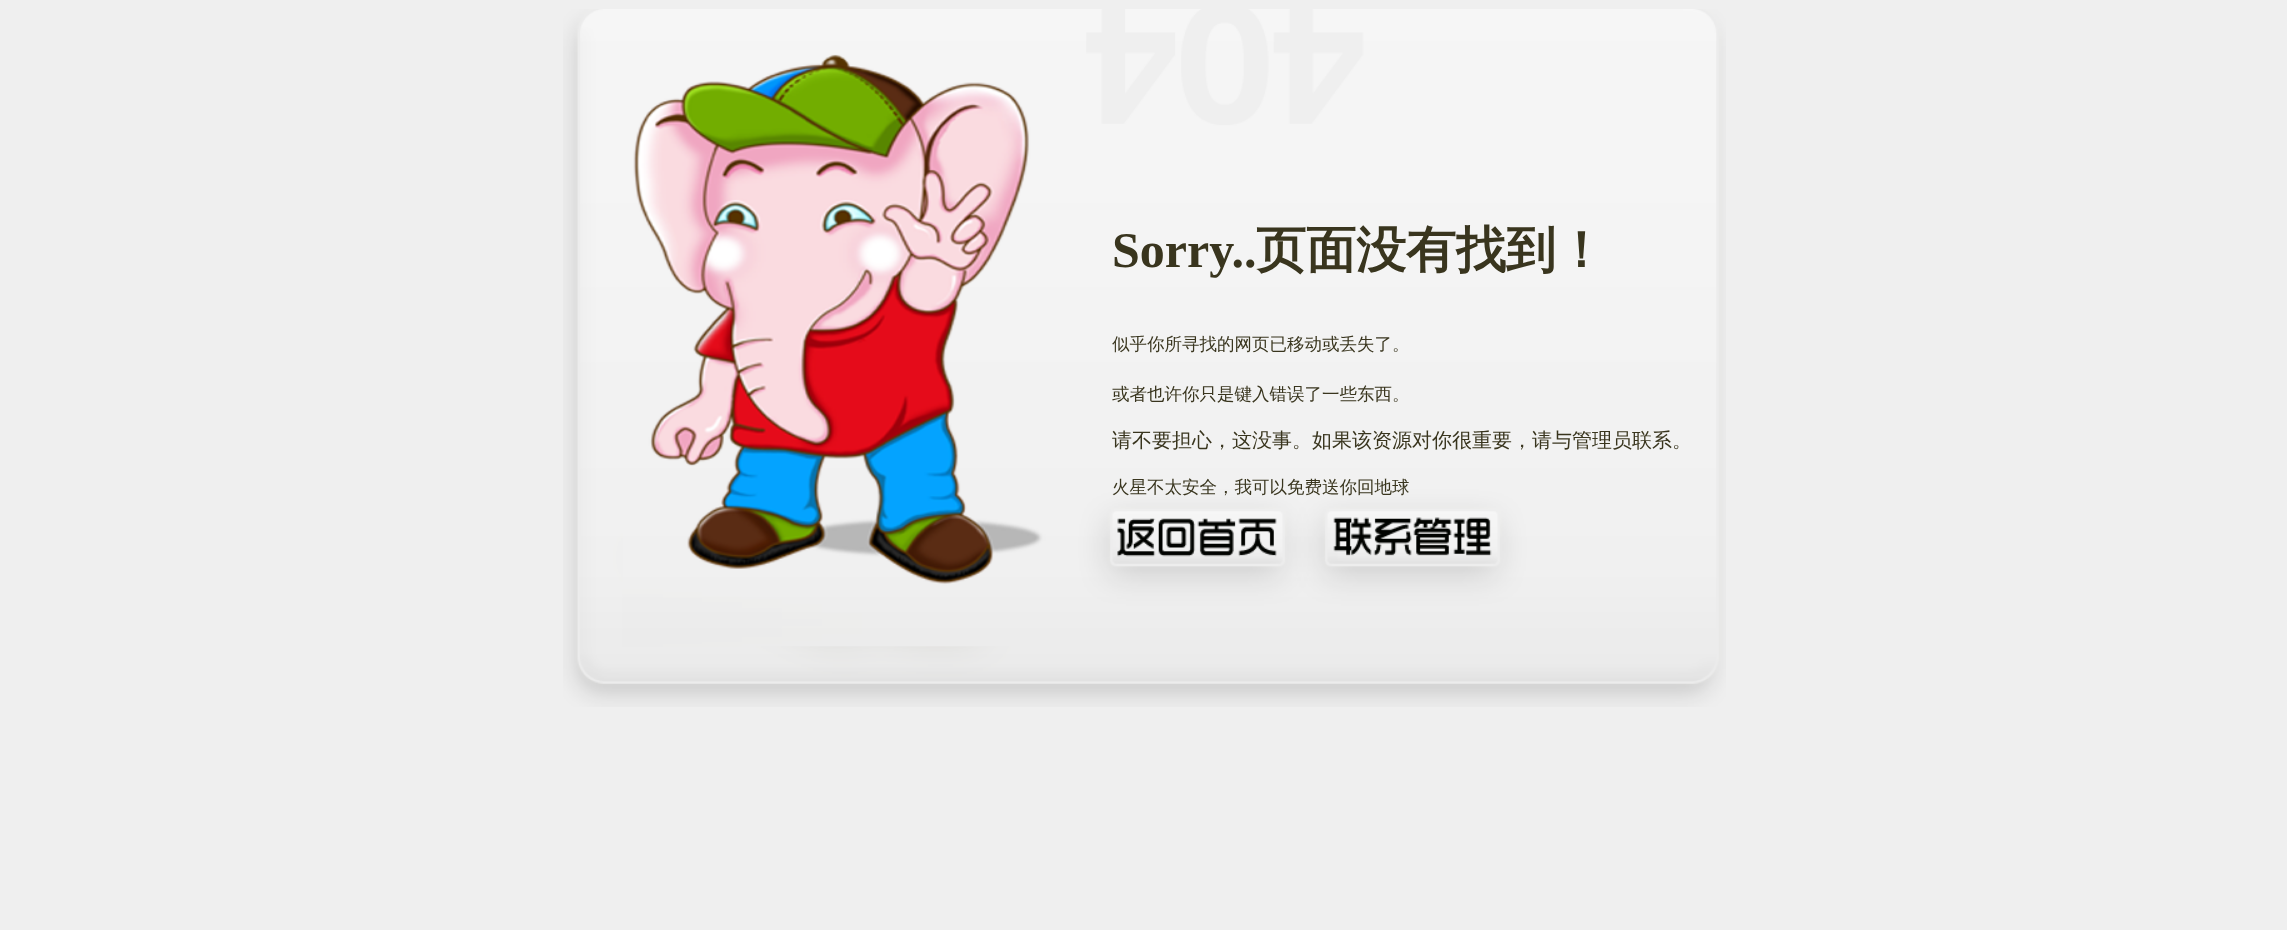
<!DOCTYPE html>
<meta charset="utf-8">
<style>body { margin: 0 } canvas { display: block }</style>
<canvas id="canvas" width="2287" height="930"></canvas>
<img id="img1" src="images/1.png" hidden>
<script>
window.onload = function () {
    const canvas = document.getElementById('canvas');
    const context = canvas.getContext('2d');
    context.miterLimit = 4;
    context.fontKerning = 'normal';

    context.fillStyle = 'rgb(239, 239, 239)';
    context.fillRect(0, 0, 2287, 930);
    context.drawImage(document.getElementById('img1'), 563, 9, 1163, 698);
    context.font = 'bold 50px Liberation Serif';
    context.fillStyle = 'rgb(57, 53, 30)';
    context.fillText('Sorry..', 1112, 267);
    context.font = 'bold 50px WenQuanYi Zen Hei';
    context.fillText('页面没有找到！', 1256, 267);
    context.font = '500 17.5px WenQuanYi Zen Hei';
    context.fillText('似乎你所寻找的网页已移动或丢失了。', 1112, 350);
    context.fillText('或者也许你只是键入错误了一些东西。', 1112, 400);
    context.font = '500 20px WenQuanYi Zen Hei';
    context.fillText('请不要担心，这没事。如果该资源对你很重要，请与管理员联系。', 1112, 447);
    context.font = '500 17.5px WenQuanYi Zen Hei';
    context.fillText('火星不太安全，我可以免费送你回地球', 1112, 493);
};
</script>
